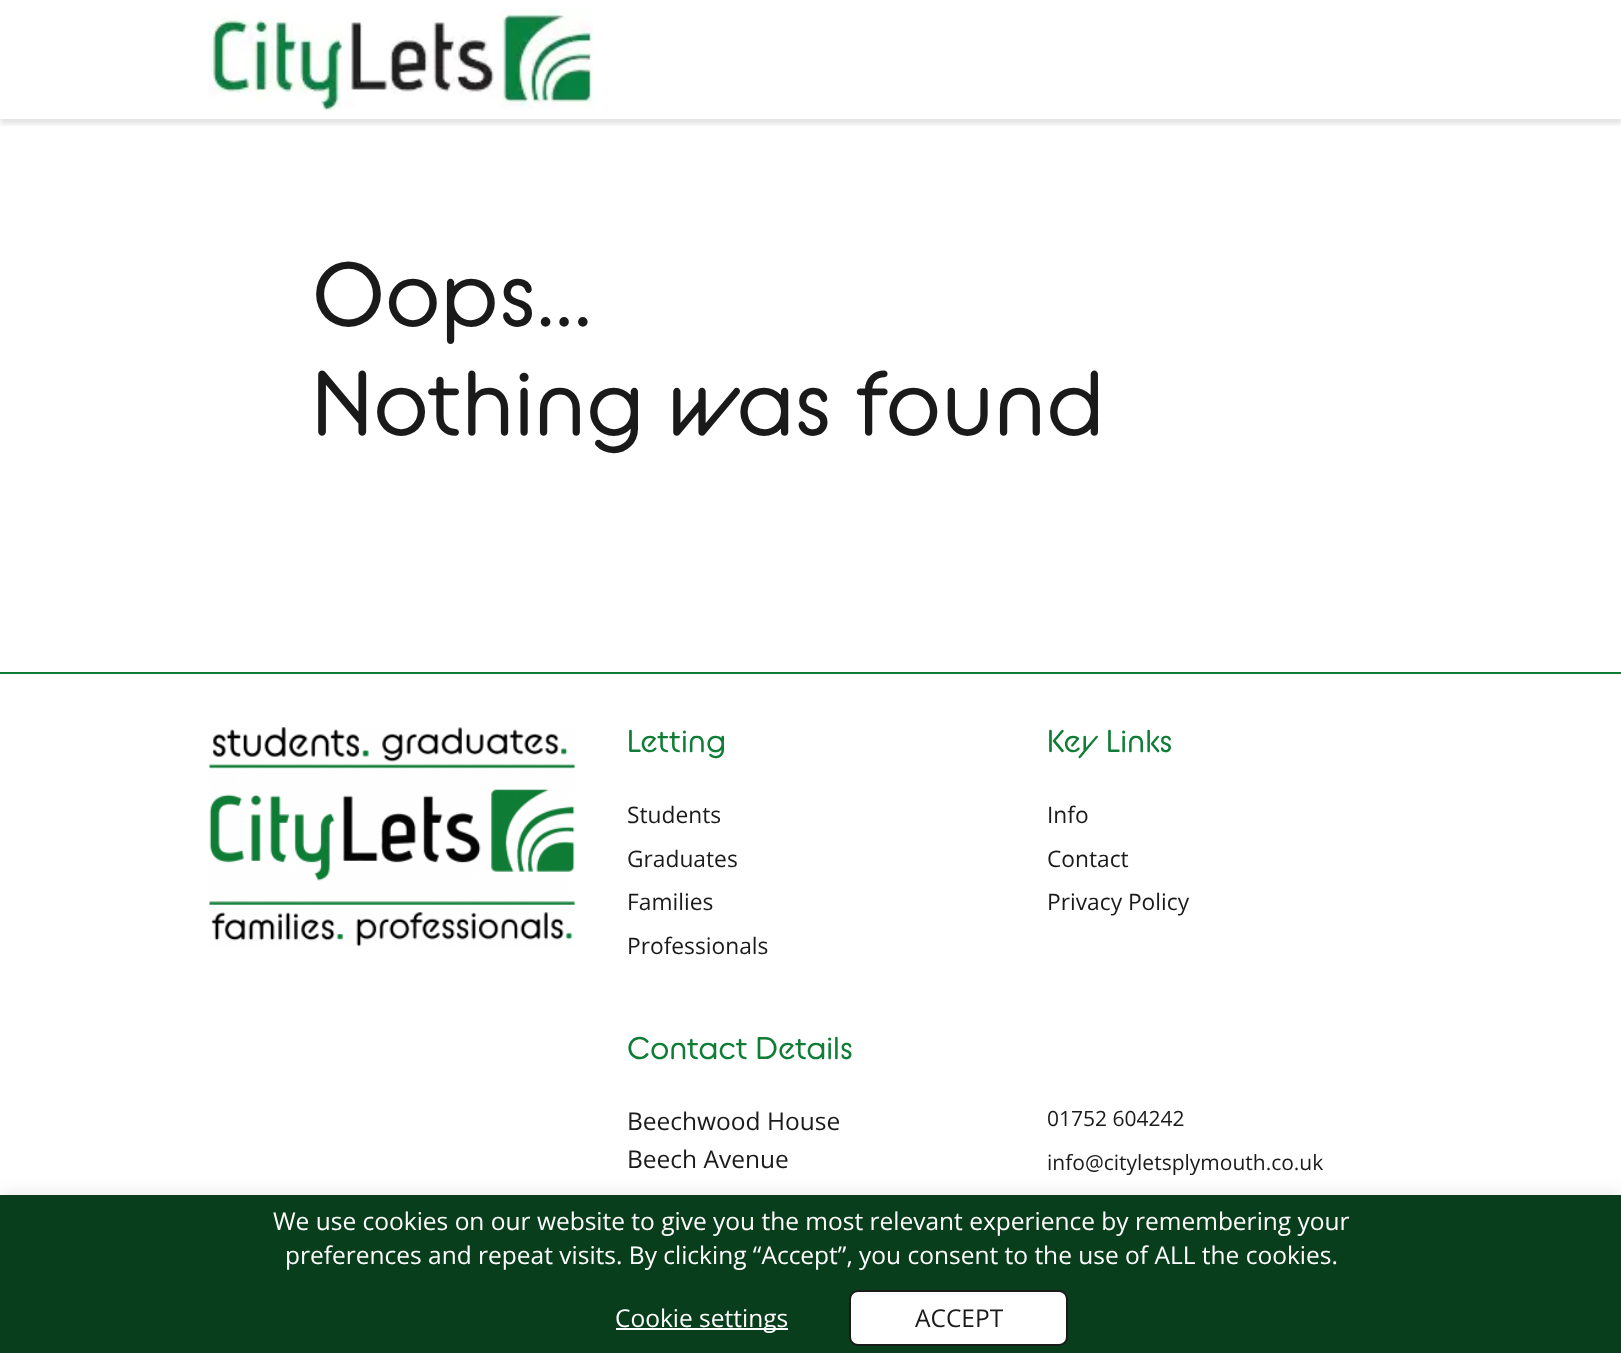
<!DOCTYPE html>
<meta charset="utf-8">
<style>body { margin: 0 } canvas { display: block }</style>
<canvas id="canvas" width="1621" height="1353"></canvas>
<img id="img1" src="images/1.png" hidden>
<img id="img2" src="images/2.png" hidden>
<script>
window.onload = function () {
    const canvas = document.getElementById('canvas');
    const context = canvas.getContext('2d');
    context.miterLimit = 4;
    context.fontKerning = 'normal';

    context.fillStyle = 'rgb(255, 255, 255)';
    context.fillRect(0, 0, 1621, 1353);
    context.save();
    context.beginPath();
    context.rect(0, 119, 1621, 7);
    context.clip();
    context.fillStyle = 'rgba(0, 0, 0, 0.11)';
    context.filter = 'blur(2.5px)';
    context.beginPath();
    context.rect(0, 5, 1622, 119);
    context.fill();
    context.filter = 'none';
    context.restore();
    context.drawImage(document.getElementById('img1'), 208, 9, 386, 102);
    context.fillStyle = 'rgb(15, 125, 54)';
    context.fillRect(0, 672, 1621, 2);
    context.drawImage(document.getElementById('img2'), 209, 727, 366, 220);
    context.fillStyle = 'rgba(172, 171, 171, 0.3)';
    context.filter = 'blur(9px)';
    context.beginPath();
    context.rect(0, 1194, 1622, 159);
    context.fill();
    context.filter = 'none';
    context.fillStyle = 'rgb(9, 62, 28)';
    context.fillRect(0, 1195, 1621, 158);
    context.fillStyle = 'rgb(255, 255, 255)';
    context.fillRect(616, 1328, 172, 2);
    context.beginPath();
    context.roundRect(850, 1291, 217, 54, 8);
    context.fill();
    context.strokeStyle = 'rgb(26, 26, 26)';
    context.lineWidth = 2;
    context.stroke();
    context.font = '91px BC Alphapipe';
    context.fillStyle = 'rgb(26, 26, 26)';
    context.fillText('Oops...', 312, 326);
    context.fillText('Nothing was found', 312, 435);
    context.font = '31.5px BC Alphapipe';
    context.fillStyle = 'rgb(15, 125, 54)';
    context.fillText('Letting', 627, 752);
    context.font = '22.75px Open Sans';
    context.fillStyle = 'rgb(26, 26, 26)';
    context.fillText('Students', 627, 823);
    context.fillText('Graduates', 627, 867);
    context.fillText('Families', 627, 910);
    context.fillText('Professionals', 627, 954);
    context.font = '31.5px BC Alphapipe';
    context.fillStyle = 'rgb(15, 125, 54)';
    context.fillText('Key Links', 1047, 752);
    context.font = '22.75px Open Sans';
    context.fillStyle = 'rgb(26, 26, 26)';
    context.fillText('Info', 1047, 823);
    context.fillText('Contact', 1047, 867);
    context.fillText('Privacy Policy', 1047, 910);
    context.font = '31.5px BC Alphapipe';
    context.fillStyle = 'rgb(15, 125, 54)';
    context.fillText('Contact Details', 627, 1059);
    context.font = '24.5px Open Sans';
    context.fillStyle = 'rgb(26, 26, 26)';
    context.fillText('Beechwood House', 627, 1130);
    context.fillText('Beech Avenue', 627, 1168);
    context.font = '21px Open Sans';
    context.fillText('01752 604242', 1047, 1126);
    context.fillText('info@cityletsplymouth.co.uk', 1047, 1170);
    context.font = '24.5px Open Sans';
    context.fillStyle = 'rgb(255, 255, 255)';
    context.fillText('We use cookies on our website to give you the most relevant experience by remembering your', 273, 1230);
    context.fillText('preferences and repeat visits. By clicking “Accept”, you consent to the use of ALL the cookies.', 285, 1264);
    context.fillText('Cookie settings', 615, 1327);
    context.fillStyle = 'rgb(26, 26, 26)';
    context.fillText('ACCEPT', 915, 1327);
};
</script>
